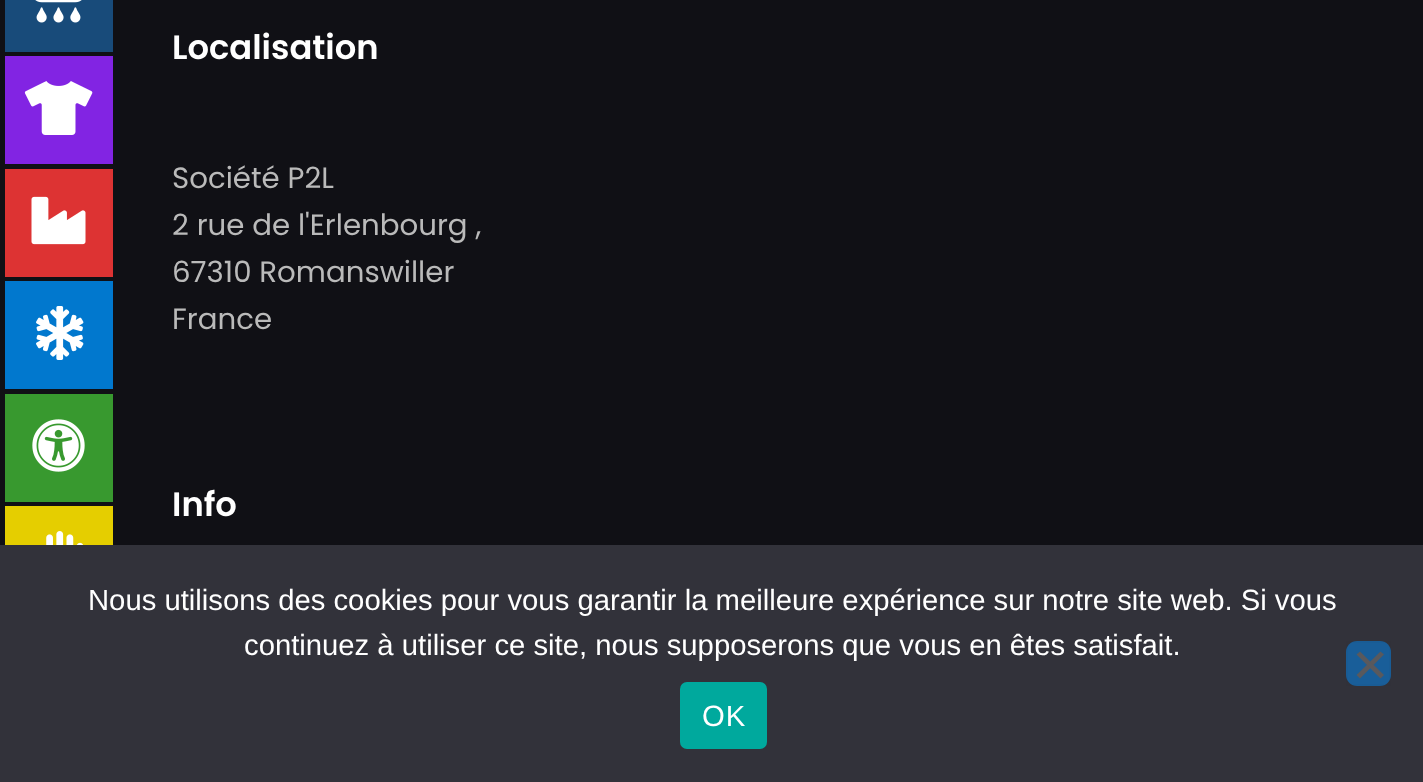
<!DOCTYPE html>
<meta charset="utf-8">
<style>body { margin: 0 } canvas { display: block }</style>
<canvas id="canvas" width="1423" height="782"></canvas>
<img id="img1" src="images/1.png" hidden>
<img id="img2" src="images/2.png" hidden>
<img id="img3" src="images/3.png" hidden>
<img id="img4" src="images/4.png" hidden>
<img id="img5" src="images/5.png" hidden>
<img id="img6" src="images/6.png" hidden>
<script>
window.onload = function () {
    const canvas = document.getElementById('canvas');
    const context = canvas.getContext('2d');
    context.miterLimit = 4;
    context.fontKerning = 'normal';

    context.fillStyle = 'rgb(16, 16, 21)';
    context.fillRect(0, 0, 1423, 782);
    context.fillStyle = 'rgb(24, 75, 122)';
    context.fillRect(5, 0, 108, 52);
    context.drawImage(document.getElementById('img1'), 35, 0, 47, 23);
    context.fillStyle = 'rgb(130, 36, 227)';
    context.fillRect(5, 56, 108, 108);
    context.drawImage(document.getElementById('img2'), 24, 81, 69, 54);
    context.fillStyle = 'rgb(221, 51, 51)';
    context.fillRect(5, 169, 108, 108);
    context.drawImage(document.getElementById('img3'), 31, 196, 55, 49);
    context.fillStyle = 'rgb(1, 120, 206)';
    context.fillRect(5, 281, 108, 108);
    context.drawImage(document.getElementById('img4'), 36, 306, 48, 54);
    context.fillStyle = 'rgb(56, 153, 47)';
    context.fillRect(5, 394, 108, 108);
    context.drawImage(document.getElementById('img5'), 32, 419, 53, 53);
    context.fillStyle = 'rgb(229, 206, 0)';
    context.fillRect(5, 506, 108, 39);
    context.drawImage(document.getElementById('img6'), 46, 531, 37, 14);
    context.fillStyle = 'rgb(50, 50, 58)';
    context.fillRect(0, 545, 1423, 237);
    context.fillStyle = 'rgb(25, 94, 153)';
    context.beginPath();
    context.roundRect(1346, 641, 45, 45, 11);
    context.fill();
    context.strokeStyle = 'rgba(25, 25, 29, 0.03)';
    context.lineWidth = 2;
    context.strokeRect(1347, 642, 43, 43);
    context.fillStyle = 'rgb(89, 89, 93)';
    context.beginPath();
    context.moveTo(1380.5, 651.5);
    context.lineTo(1384, 654.5);
    context.lineTo(1360, 678.5);
    context.lineTo(1356.5, 675);
    context.closePath();
    context.fill();
    context.beginPath();
    context.moveTo(1356.5, 654.5);
    context.lineTo(1360, 651.5);
    context.lineTo(1384, 675);
    context.lineTo(1380.5, 678.5);
    context.closePath();
    context.fill();
    context.fillStyle = 'rgb(0, 169, 157)';
    context.beginPath();
    context.roundRect(680, 682, 87, 67, 7);
    context.fill();
    context.font = '600 33.75px Poppins';
    context.fillStyle = 'rgb(255, 255, 255)';
    context.fillText('Localisation', 172, 59);
    context.font = '29.25px Poppins';
    context.fillStyle = 'rgb(186, 186, 186)';
    context.fillText('Société P2L', 172, 188);
    context.fillText('2 rue de l\'Erlenbourg ,', 172, 235);
    context.fillText('67310 Romanswiller', 172, 282);
    context.fillText('France', 172, 329);
    context.font = '600 33.75px Poppins';
    context.fillStyle = 'rgb(255, 255, 255)';
    context.fillText('Info', 172, 516);
    context.font = '29.25px Liberation Sans';
    context.fillText('Nous utilisons des cookies pour vous garantir la meilleure expérience sur notre site web. Si vous', 88, 610);
    context.fillText('continuez à utiliser ce site, nous supposerons que vous en êtes satisfait.', 244, 655);
    context.letterSpacing = '1px';
    context.fillText('OK', 702, 726);
};
</script>
